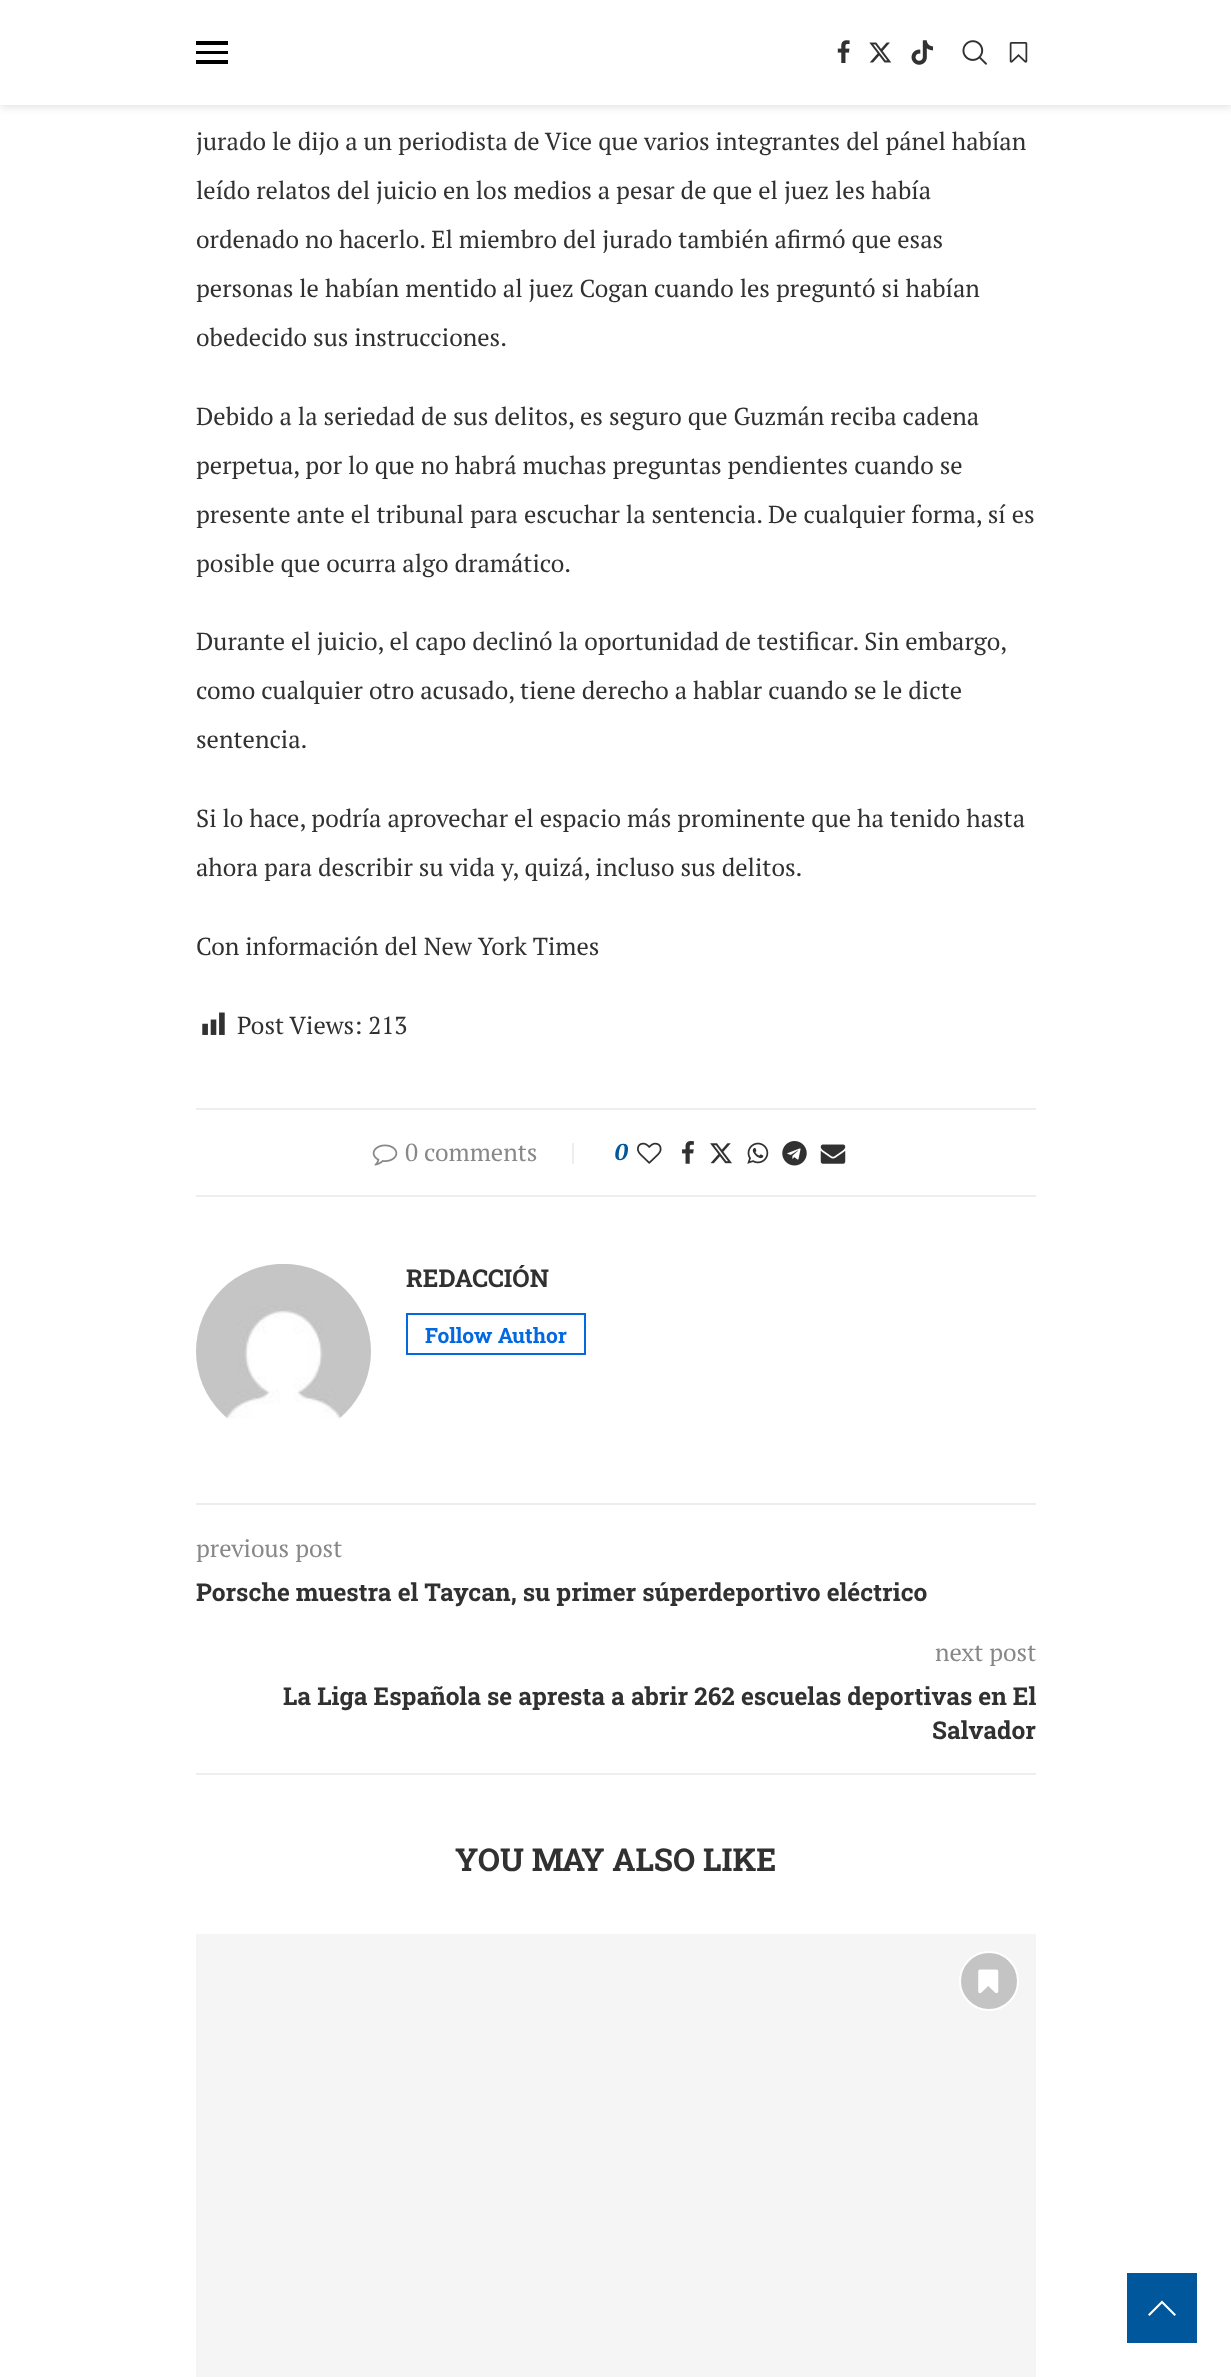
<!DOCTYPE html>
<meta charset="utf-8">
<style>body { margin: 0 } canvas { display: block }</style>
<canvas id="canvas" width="1231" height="2377"></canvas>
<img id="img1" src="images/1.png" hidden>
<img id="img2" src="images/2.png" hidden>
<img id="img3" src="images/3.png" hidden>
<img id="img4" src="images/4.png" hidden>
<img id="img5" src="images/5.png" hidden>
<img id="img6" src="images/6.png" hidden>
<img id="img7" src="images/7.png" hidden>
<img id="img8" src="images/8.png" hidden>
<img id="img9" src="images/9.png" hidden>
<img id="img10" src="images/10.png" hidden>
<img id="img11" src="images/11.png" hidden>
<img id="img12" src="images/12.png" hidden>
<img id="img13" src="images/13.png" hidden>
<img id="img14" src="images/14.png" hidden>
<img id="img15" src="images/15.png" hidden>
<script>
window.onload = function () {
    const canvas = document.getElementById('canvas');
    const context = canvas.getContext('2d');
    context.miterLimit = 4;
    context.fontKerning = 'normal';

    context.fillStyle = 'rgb(255, 255, 255)';
    context.fillRect(0, 0, 1231, 2377);
    context.fillStyle = 'rgba(190, 190, 190, 0.46)';
    context.filter = 'blur(4.5px)';
    context.beginPath();
    context.rect(0, 2, 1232, 105);
    context.fill();
    context.filter = 'none';
    context.fillStyle = 'rgb(255, 255, 255)';
    context.fillRect(0, 0, 1231, 105);
    context.fillStyle = 'rgb(0, 0, 0)';
    context.fillRect(196, 41, 32, 4);
    context.fillRect(196, 51, 32, 3);
    context.fillRect(196, 60, 32, 4);
    context.drawImage(document.getElementById('img1'), 837, 40, 13, 23);
    context.drawImage(document.getElementById('img2'), 869, 42, 23, 21);
    context.drawImage(document.getElementById('img3'), 911, 40, 23, 25);
    context.drawImage(document.getElementById('img4'), 962, 40, 25, 25);
    context.drawImage(document.getElementById('img5'), 1009, 42, 19, 21);
    context.drawImage(document.getElementById('img6'), 202, 1012, 23, 23);
    context.fillStyle = 'rgb(238, 238, 238)';
    context.fillRect(196, 1108, 840, 2);
    context.drawImage(document.getElementById('img7'), 372, 1144, 26, 22);
    context.fillRect(572, 1143, 2, 21);
    context.drawImage(document.getElementById('img8'), 637, 1142, 25, 22);
    context.drawImage(document.getElementById('img9'), 682, 1141, 12, 23);
    context.drawImage(document.getElementById('img10'), 710, 1143, 22, 21);
    context.drawImage(document.getElementById('img11'), 747, 1142, 22, 22);
    context.drawImage(document.getElementById('img12'), 782, 1141, 25, 25);
    context.drawImage(document.getElementById('img13'), 820, 1144, 26, 20);
    context.fillRect(196, 1195, 840, 2);
    context.drawImage(document.getElementById('img14'), 196, 1264, 175, 155);
    context.strokeStyle = 'rgb(2, 105, 224)';
    context.lineWidth = 2;
    context.strokeRect(407, 1314, 178, 40);
    context.fillRect(196, 1503, 840, 2);
    context.fillRect(196, 1773, 840, 2);
    context.fillStyle = 'rgb(245, 245, 245)';
    context.fillRect(196, 1934, 840, 443);
    context.fillStyle = 'rgb(196, 196, 196)';
    context.beginPath();
    context.arc(989, 1981, 29, 0, 2 * Math.PI);
    context.fill();
    context.strokeStyle = 'rgb(255, 255, 255)';
    context.stroke();
    context.drawImage(document.getElementById('img15'), 978, 1969, 21, 25);
    context.fillStyle = 'rgb(1, 87, 155)';
    context.fillRect(1127, 2273, 70, 70);
    context.fillStyle = 'rgb(255, 255, 255)';
    context.beginPath();
    context.moveTo(1162, 2300.5);
    context.lineTo(1148, 2314.5);
    context.lineTo(1149.5, 2316);
    context.lineTo(1162, 2303.5);
    context.lineTo(1174.5, 2316);
    context.lineTo(1176, 2314.5);
    context.closePath();
    context.fill();
    context.font = '24.5px PT Serif';
    context.fillStyle = 'rgb(49, 49, 49)';
    context.fillText('jurado le dijo a un periodista de Vice que varios integrantes del pánel habían', 196, 150);
    context.fillText('leído relatos del juicio en los medios a pesar de que el juez les había', 196, 199);
    context.fillText('ordenado no hacerlo. El miembro del jurado también afirmó que esas', 196, 248);
    context.fillText('personas le habían mentido al juez Cogan cuando les preguntó si habían', 196, 297);
    context.fillText('obedecido sus instrucciones.', 196, 346);
    context.fillText('Debido a la seriedad de sus delitos, es seguro que Guzmán reciba cadena', 196, 425);
    context.fillText('perpetua, por lo que no habrá muchas preguntas pendientes cuando se', 196, 474);
    context.fillText('presente ante el tribunal para escuchar la sentencia. De cualquier forma, sí es', 196, 523);
    context.fillText('posible que ocurra algo dramático.', 196, 572);
    context.fillText('Durante el juicio, el capo declinó la oportunidad de testificar. Sin embargo,', 196, 650);
    context.fillText('como cualquier otro acusado, tiene derecho a hablar cuando se le dicte', 196, 699);
    context.fillText('sentencia.', 196, 748);
    context.fillText('Si lo hace, podría aprovechar el espacio más prominente que ha tenido hasta', 196, 827);
    context.fillText('ahora para describir su vida y, quizá, incluso sus delitos.', 196, 876);
    context.fillText('Con información del New York Times', 196, 955);
    context.fillText('Post Views: 213', 237, 1034);
    context.fillStyle = 'rgb(136, 136, 136)';
    context.fillText('0 comments', 405, 1161);
    context.font = 'italic bold 23px PT Serif';
    context.fillStyle = 'rgb(1, 87, 155)';
    context.fillText('0', 615, 1160);
    context.font = 'bold 24.5px Roboto Slab';
    context.fillStyle = 'rgb(49, 49, 49)';
    context.fillText('REDACCIÓN', 406, 1287);
    context.font = 'bold 21px Roboto Slab';
    context.fillStyle = 'rgb(2, 105, 224)';
    context.fillText('Follow Author', 425, 1343);
    context.font = '24.5px PT Serif';
    context.fillStyle = 'rgb(136, 136, 136)';
    context.fillText('previous post', 196, 1557);
    context.font = 'bold 24.5px Roboto Slab';
    context.fillStyle = 'rgb(49, 49, 49)';
    context.fillText('Porsche muestra el Taycan, su primer súperdeportivo eléctrico', 196, 1601);
    context.font = '24.5px PT Serif';
    context.fillStyle = 'rgb(136, 136, 136)';
    context.fillText('next post', 935, 1661);
    context.font = 'bold 24.5px Roboto Slab';
    context.fillStyle = 'rgb(49, 49, 49)';
    context.fillText('La Liga Española se apresta a abrir 262 escuelas deportivas en El', 283, 1705);
    context.fillText('Salvador', 932, 1739);
    context.font = 'bold 31.5px Roboto Slab';
    context.fillText('YOU MAY ALSO LIKE', 455, 1871);
};
</script>
